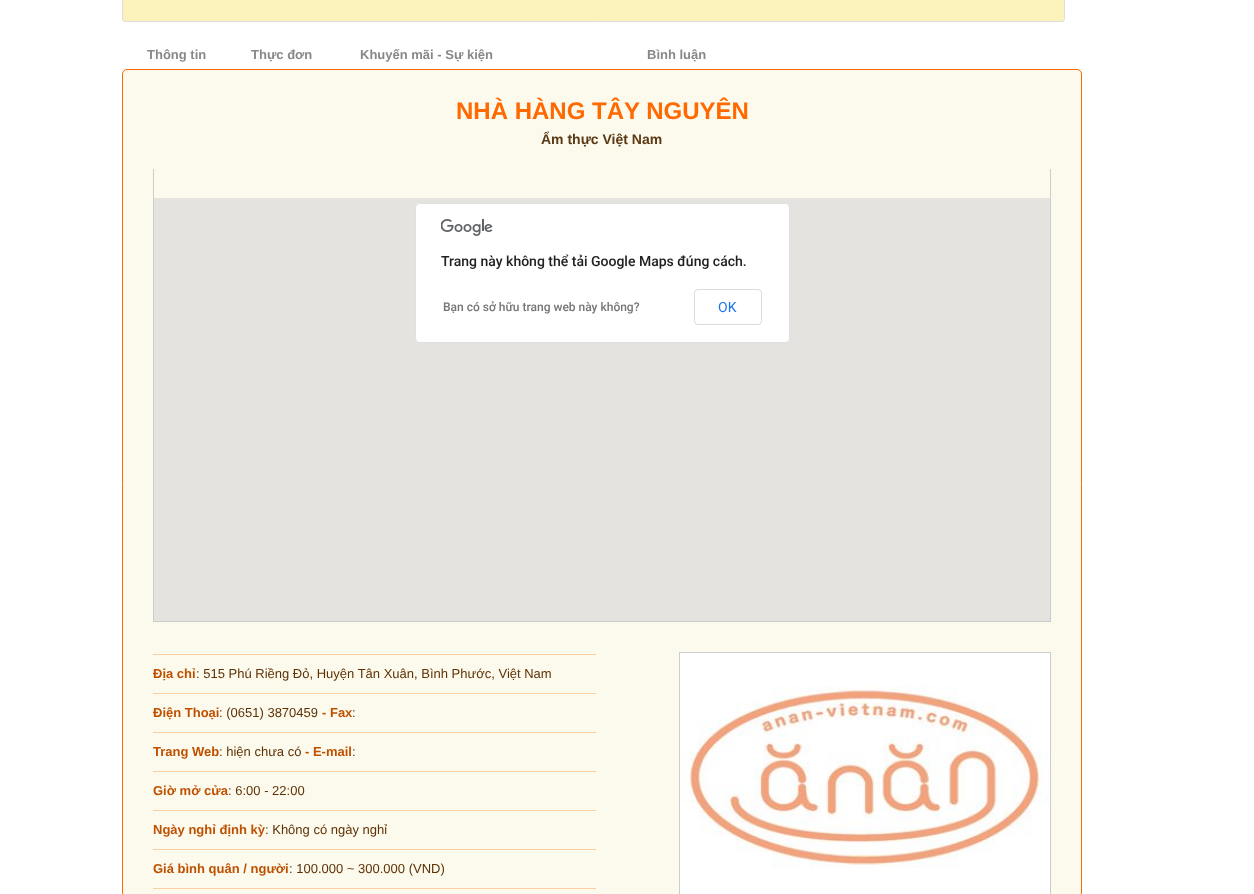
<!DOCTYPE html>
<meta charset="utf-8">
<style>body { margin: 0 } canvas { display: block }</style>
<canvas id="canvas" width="1254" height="894"></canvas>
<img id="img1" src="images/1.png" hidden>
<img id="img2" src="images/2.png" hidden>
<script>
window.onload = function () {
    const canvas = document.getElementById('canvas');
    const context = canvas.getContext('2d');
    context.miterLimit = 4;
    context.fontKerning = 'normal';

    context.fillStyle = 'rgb(255, 255, 255)';
    context.fillRect(0, 0, 1254, 894);
    context.fillStyle = 'rgb(252, 243, 188)';
    context.beginPath();
    context.roundRect(122.5, -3.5, 942, 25, 2.5);
    context.fill();
    context.strokeStyle = 'rgb(221, 221, 221)';
    context.stroke();
    context.fillStyle = 'rgb(252, 250, 237)';
    context.beginPath();
    context.roundRect(122.5, 69.5, 959, 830, 4.5);
    context.fill();
    context.strokeStyle = 'rgb(255, 105, 0)';
    context.stroke();
    context.fillStyle = 'rgb(204, 204, 204)';
    context.fillRect(1050, 169, 1, 453);
    context.fillRect(153, 621, 898, 1);
    context.fillRect(153, 169, 1, 453);
    context.fillStyle = 'rgb(229, 227, 223)';
    context.fillRect(154, 198, 896, 423);
    context.fillStyle = 'rgb(255, 255, 255)';
    context.beginPath();
    context.roundRect(415, 203, 375, 140, 5);
    context.fill();
    context.beginPath();
    context.roundRect(415.5, 203.5, 374, 139, 4.5);
    context.strokeStyle = 'rgba(0, 0, 0, 0.12)';
    context.stroke();
    context.drawImage(document.getElementById('img1'), 441, 219, 52, 17);
    context.beginPath();
    context.roundRect(694.5, 289.5, 67, 35, 3.5);
    context.strokeStyle = 'rgb(218, 220, 224)';
    context.stroke();
    context.fillStyle = 'rgb(251, 207, 160)';
    context.fillRect(153, 654, 443, 1);
    context.fillRect(153, 693, 443, 1);
    context.fillRect(153, 732, 443, 1);
    context.fillRect(153, 771, 443, 1);
    context.fillRect(153, 810, 443, 1);
    context.fillRect(153, 849, 443, 1);
    context.fillRect(153, 888, 443, 1);
    context.strokeStyle = 'rgb(204, 204, 204)';
    context.strokeRect(679.5, 652.5, 371, 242);
    context.drawImage(document.getElementById('img2'), 680, 653, 370, 241);
    context.font = 'bold 13px Liberation Sans';
    context.fillStyle = 'rgb(136, 136, 136)';
    context.fillText('Thông tin', 147, 59);
    context.fillText('Thực đơn', 251, 59);
    context.fillText('Khuyến mãi - Sự kiện', 360, 59);
    context.fillText('Bình luận', 647, 59);
    context.font = 'bold 24px Liberation Sans';
    context.fillStyle = 'rgb(255, 105, 0)';
    context.fillText('NHÀ HÀNG TÂY NGUYÊN', 456, 119);
    context.font = 'bold 14px Liberation Sans';
    context.fillStyle = 'rgb(91, 57, 20)';
    context.fillText('Ẩm thực Việt Nam', 541, 144);
    context.font = '500 14px Roboto';
    context.fillStyle = 'rgb(33, 33, 33)';
    context.fillText('Trang này không thể tải Google Maps đúng cách.', 441, 266);
    context.font = '500 12px Roboto';
    context.fillStyle = 'rgb(117, 117, 117)';
    context.fillText('Bạn có sở hữu trang web này không?', 443, 311);
    context.font = '14px Roboto';
    context.fillStyle = 'rgb(26, 115, 232)';
    context.fillText('OK', 718, 312);
    context.font = 'bold 13px Liberation Sans';
    context.fillStyle = 'rgb(190, 80, 0)';
    context.fillText('Địa chỉ', 153, 678);
    context.font = '13px Liberation Sans';
    context.fillStyle = 'rgb(95, 50, 6)';
    context.fillText(': 515 Phú Riềng Đỏ, Huyện Tân Xuân, Bình Phước, Việt Nam', 196, 678);
    context.font = 'bold 13px Liberation Sans';
    context.fillStyle = 'rgb(190, 80, 0)';
    context.fillText('Điện Thoại', 153, 717);
    context.font = '13px Liberation Sans';
    context.fillStyle = 'rgb(95, 50, 6)';
    context.fillText(': (0651) 3870459', 219, 717);
    context.font = 'bold 13px Liberation Sans';
    context.fillStyle = 'rgb(190, 80, 0)';
    context.fillText('- Fax', 322, 717);
    context.font = '13px Liberation Sans';
    context.fillStyle = 'rgb(95, 50, 6)';
    context.fillText(':', 352, 717);
    context.font = 'bold 13px Liberation Sans';
    context.fillStyle = 'rgb(190, 80, 0)';
    context.fillText('Trang Web', 153, 756);
    context.font = '13px Liberation Sans';
    context.fillStyle = 'rgb(95, 50, 6)';
    context.fillText(': hiện chưa có', 219, 756);
    context.font = 'bold 13px Liberation Sans';
    context.fillStyle = 'rgb(190, 80, 0)';
    context.fillText('- E-mail', 305, 756);
    context.font = '13px Liberation Sans';
    context.fillStyle = 'rgb(95, 50, 6)';
    context.fillText(':', 352, 756);
    context.font = 'bold 13px Liberation Sans';
    context.fillStyle = 'rgb(190, 80, 0)';
    context.fillText('Giờ mở cửa', 153, 795);
    context.font = '13px Liberation Sans';
    context.fillStyle = 'rgb(95, 50, 6)';
    context.fillText(': 6:00 - 22:00', 228, 795);
    context.font = 'bold 13px Liberation Sans';
    context.fillStyle = 'rgb(190, 80, 0)';
    context.fillText('Ngày nghỉ định kỳ', 153, 834);
    context.font = '13px Liberation Sans';
    context.fillStyle = 'rgb(95, 50, 6)';
    context.fillText(': Không có ngày nghỉ', 265, 834);
    context.font = 'bold 13px Liberation Sans';
    context.fillStyle = 'rgb(190, 80, 0)';
    context.fillText('Giá bình quân / người', 153, 873);
    context.font = '13px Liberation Sans';
    context.fillStyle = 'rgb(95, 50, 6)';
    context.fillText(': 100.000 ~ 300.000 (VND)', 289, 873);
};
</script>
